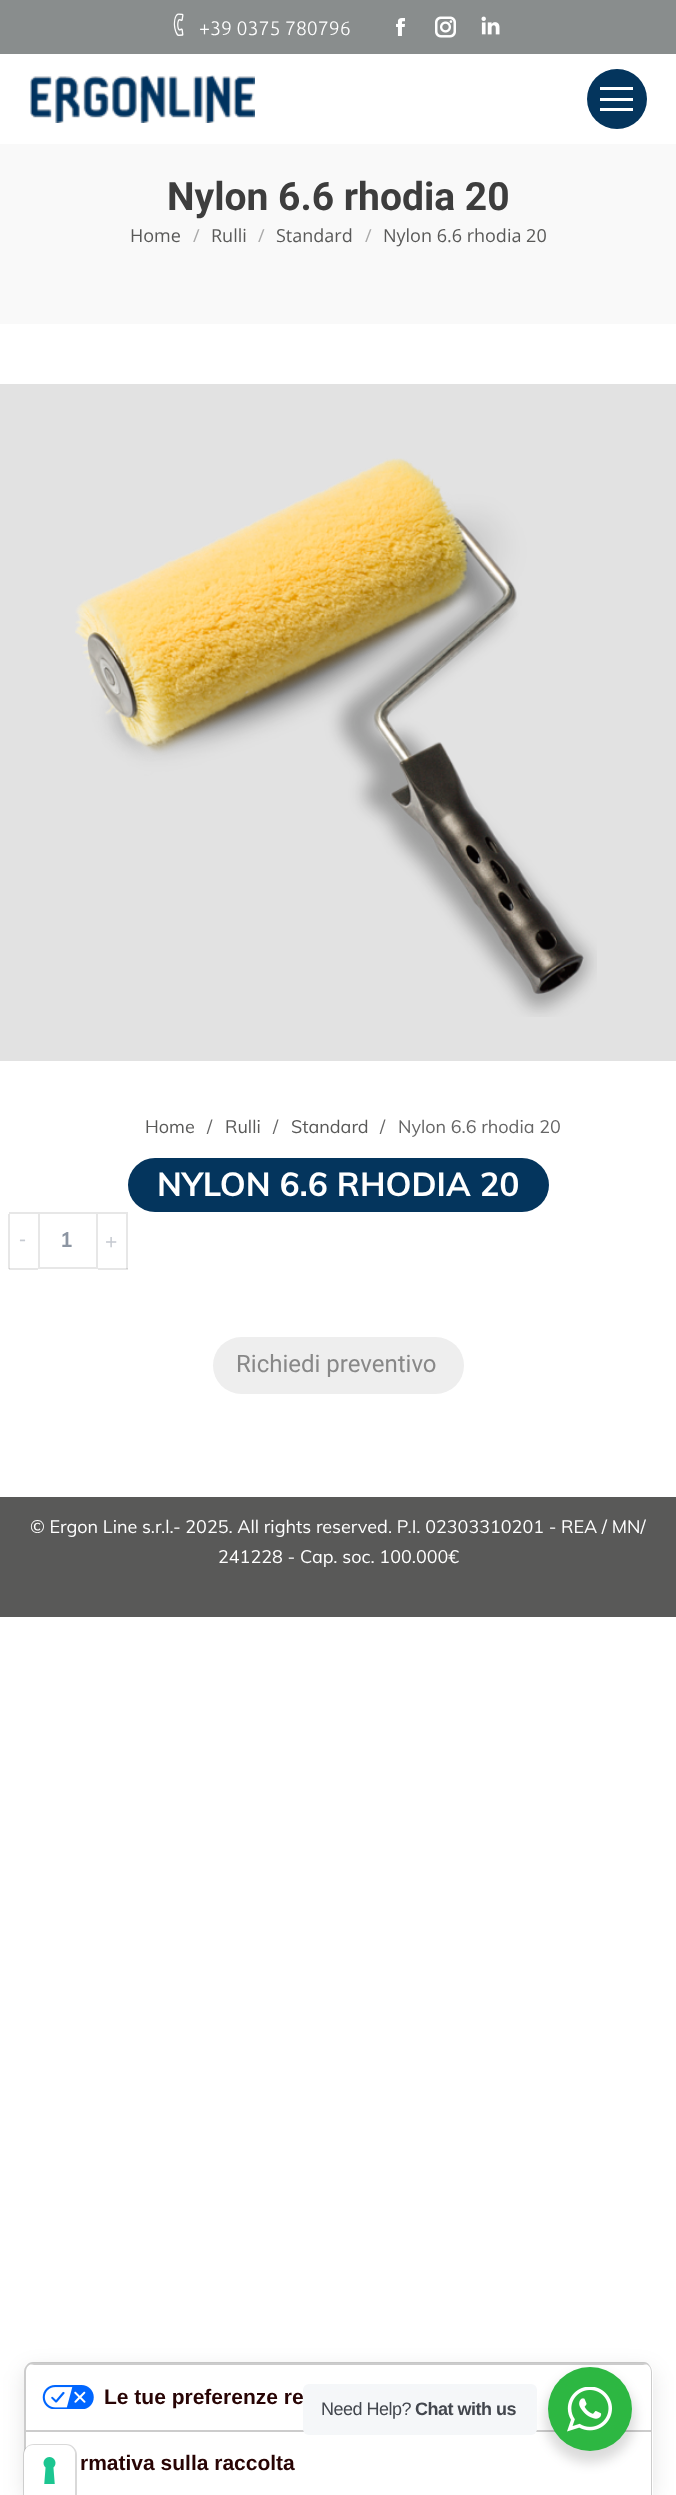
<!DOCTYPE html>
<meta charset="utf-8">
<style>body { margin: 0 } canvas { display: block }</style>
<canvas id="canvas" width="676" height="2495"></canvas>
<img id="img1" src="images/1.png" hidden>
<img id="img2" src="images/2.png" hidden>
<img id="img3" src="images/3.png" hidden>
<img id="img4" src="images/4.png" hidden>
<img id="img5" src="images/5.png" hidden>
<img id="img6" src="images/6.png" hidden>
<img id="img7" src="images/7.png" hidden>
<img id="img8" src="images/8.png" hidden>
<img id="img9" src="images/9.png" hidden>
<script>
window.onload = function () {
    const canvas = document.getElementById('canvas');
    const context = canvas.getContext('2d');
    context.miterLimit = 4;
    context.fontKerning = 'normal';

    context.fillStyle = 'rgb(255, 255, 255)';
    context.fillRect(0, 0, 676, 2495);
    context.fillStyle = 'rgb(231, 231, 231)';
    context.fillRect(98, 1268, 30, 2);
    context.fillRect(8, 1214, 2, 55);
    context.fillStyle = 'rgb(137, 141, 141)';
    context.fillRect(0, 0, 676, 54);
    context.drawImage(document.getElementById('img1'), 173, 13, 11, 23);
    context.drawImage(document.getElementById('img2'), 396, 18, 9, 18);
    context.drawImage(document.getElementById('img3'), 435, 16, 21, 22);
    context.drawImage(document.getElementById('img4'), 481, 16, 19, 19);
    context.drawImage(document.getElementById('img5'), 30, 75, 225, 48);
    context.fillStyle = 'rgb(4, 53, 93)';
    context.beginPath();
    context.arc(617, 99, 30, 0, 2 * Math.PI);
    context.fill();
    context.fillStyle = 'rgb(255, 255, 255)';
    context.fillRect(600, 98, 33, 3);
    context.fillRect(600, 87, 33, 3);
    context.fillRect(600, 108, 33, 3);
    context.fillStyle = 'rgb(249, 249, 249)';
    context.fillRect(0, 144, 676, 180);
    context.fillStyle = 'rgb(226, 226, 226)';
    context.fillRect(0, 384, 676, 677);
    context.drawImage(document.getElementById('img6'), 75, 458, 522, 559);
    context.fillStyle = 'rgb(4, 53, 93)';
    context.beginPath();
    context.roundRect(128, 1158, 421, 54, 27);
    context.fill();
    context.fillStyle = 'rgb(231, 231, 231)';
    context.fillRect(9, 1212, 29, 2);
    context.fillRect(9, 1268, 29, 2);
    context.fillStyle = 'rgb(209, 209, 209)';
    context.fillRect(9, 1268, 1, 1);
    context.strokeStyle = 'rgb(231, 231, 231)';
    context.lineWidth = 2;
    context.strokeRect(39, 1213, 58, 55);
    context.fillStyle = 'rgb(231, 231, 231)';
    context.fillRect(98, 1212, 30, 2);
    context.fillRect(126, 1214, 2, 55);
    context.fillStyle = 'rgb(209, 209, 209)';
    context.fillRect(126, 1268, 2, 1);
    context.fillStyle = 'rgb(238, 238, 238)';
    context.beginPath();
    context.roundRect(213, 1337, 251, 57, 28.5);
    context.fill();
    context.fillStyle = 'rgb(89, 89, 88)';
    context.fillRect(0, 1497, 676, 120);
    context.fillStyle = 'rgba(0, 0, 0, 0.1)';
    context.filter = 'blur(10.5px)';
    context.beginPath();
    context.roundRect(24, 2369, 629, 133, 9);
    context.fill();
    context.filter = 'none';
    context.fillStyle = 'rgb(255, 255, 255)';
    context.beginPath();
    context.moveTo(33, 2363);
    context.lineTo(644, 2363);
    context.bezierCurveTo(649, 2363, 653, 2367, 653, 2372);
    context.lineTo(653, 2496);
    context.lineTo(24, 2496);
    context.lineTo(24, 2372);
    context.bezierCurveTo(24, 2367, 28, 2363, 33, 2363);
    context.closePath();
    context.fill();
    context.fillStyle = 'rgba(0, 0, 0, 0.2)';
    context.beginPath();
    context.moveTo(33, 2362);
    context.lineTo(644, 2362);
    context.bezierCurveTo(648, 2362, 652, 2367, 652, 2372);
    context.lineTo(652, 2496);
    context.lineTo(24, 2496);
    context.lineTo(24, 2372);
    context.bezierCurveTo(24, 2367, 28, 2362, 33, 2362);
    context.closePath();
    context.moveTo(33, 2364);
    context.lineTo(644, 2364);
    context.bezierCurveTo(648, 2364, 651, 2367, 651, 2372);
    context.lineTo(651, 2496);
    context.lineTo(26, 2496);
    context.lineTo(26, 2372);
    context.bezierCurveTo(26, 2367, 29, 2364, 33, 2364);
    context.closePath();
    context.fill('evenodd');
    context.fillStyle = 'rgb(204, 204, 204)';
    context.beginPath();
    context.moveTo(651, 2432);
    context.lineTo(26, 2432);
    context.lineTo(26, 2430);
    context.lineTo(651, 2430);
    context.closePath();
    context.moveTo(34, 2364);
    context.lineTo(30, 2365);
    context.lineTo(647, 2365);
    context.lineTo(643, 2364);
    context.closePath();
    context.fill('evenodd');
    context.drawImage(document.getElementById('img7'), 42, 2385, 52, 24);
    context.fillStyle = 'rgba(0, 0, 0, 0.14)';
    context.filter = 'blur(6px)';
    context.beginPath();
    context.roundRect(545, 2373, 90, 90, 45);
    context.fill();
    context.filter = 'none';
    context.fillStyle = 'rgb(45, 183, 66)';
    context.beginPath();
    context.arc(590, 2409, 42, 0, 2 * Math.PI);
    context.fill();
    context.drawImage(document.getElementById('img8'), 567, 2387, 45, 45);
    context.beginPath();
    context.moveTo(34, 2445);
    context.lineTo(66, 2445);
    context.bezierCurveTo(71.5, 2445, 76, 2449.5, 76, 2455);
    context.lineTo(76, 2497);
    context.lineTo(24, 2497);
    context.lineTo(24, 2455);
    context.bezierCurveTo(24, 2449.5, 28.5, 2445, 34, 2445);
    context.closePath();
    context.strokeStyle = 'rgba(0, 0, 0, 0.15)';
    context.stroke();
    context.fillStyle = 'rgb(255, 255, 255)';
    context.beginPath();
    context.moveTo(33, 2445);
    context.lineTo(66, 2445);
    context.bezierCurveTo(71, 2445, 75, 2449, 75, 2454);
    context.lineTo(75, 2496);
    context.lineTo(24, 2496);
    context.lineTo(24, 2454);
    context.bezierCurveTo(24, 2449, 28, 2445, 33, 2445);
    context.closePath();
    context.fill();
    context.drawImage(document.getElementById('img9'), 43, 2457, 13, 27);
    context.font = '300 19.5px Ubuntu';
    context.fillText('+39 0375 780796', 199, 35);
    context.font = 'bold 39px Roboto';
    context.fillStyle = 'rgb(61, 61, 61)';
    context.fillText('Nylon 6.6 rhodia 20', 167, 210);
    context.font = '18px Open Sans';
    context.fillStyle = 'rgb(89, 89, 88)';
    context.fillText('Home', 130, 242);
    context.fillStyle = 'rgb(169, 169, 169)';
    context.fillText('/', 193, 242);
    context.fillStyle = 'rgb(89, 89, 88)';
    context.fillText('Rulli', 211, 242);
    context.fillStyle = 'rgb(169, 169, 169)';
    context.fillText('/', 258, 242);
    context.fillStyle = 'rgb(89, 89, 88)';
    context.fillText('Standard', 276, 242);
    context.fillStyle = 'rgb(169, 169, 169)';
    context.fillText('/', 365, 242);
    context.fillStyle = 'rgb(89, 89, 88)';
    context.fillText('Nylon 6.6 rhodia 20', 383, 242);
    context.font = '18px Muli';
    context.fillText('Home', 145, 1133);
    context.fillStyle = 'rgb(102, 102, 102)';
    context.fillText('/', 207, 1133);
    context.fillStyle = 'rgb(89, 89, 88)';
    context.fillText('Rulli', 225, 1133);
    context.fillStyle = 'rgb(102, 102, 102)';
    context.fillText('/', 273, 1133);
    context.fillStyle = 'rgb(89, 89, 88)';
    context.fillText('Standard', 291, 1133);
    context.fillStyle = 'rgb(102, 102, 102)';
    context.fillText('/', 380, 1133);
    context.fillText('Nylon 6.6 rhodia 20', 398, 1133);
    context.font = 'bold 33px Muli';
    context.fillStyle = 'rgb(255, 255, 255)';
    context.fillText('NYLON 6.6 RHODIA 20', 157, 1196);
    context.font = '21px Liberation Sans';
    context.fillStyle = 'rgb(198, 202, 209)';
    context.fillText('-', 19, 1246);
    context.font = 'bold 21px Muli';
    context.fillStyle = 'rgb(140, 149, 162)';
    context.fillText('1', 60, 1247);
    context.font = '21px Liberation Sans';
    context.fillStyle = 'rgb(198, 202, 209)';
    context.fillText('+', 105, 1249);
    context.font = '24px Roboto';
    context.fillStyle = 'rgb(136, 136, 136)';
    context.fillText('Richiedi preventivo', 236, 1372);
    context.font = '18px Muli';
    context.fillStyle = 'rgb(255, 255, 255)';
    context.fillText('© Ergon Line s.r.l.- 2025. All rights reserved. P.I. 02303310201 - REA / MN/', 30, 1533);
    context.fillText('241228 - Cap. soc. 100.000€', 218, 1563);
    context.font = 'bold 21px Liberation Sans';
    context.fillStyle = 'rgb(40, 4, 4)';
    context.fillText('Le tue preferenze re', 104, 2404);
    context.fillText('rmativa sulla raccolta', 80, 2470);
    context.fillStyle = 'rgb(245, 247, 249)';
    context.beginPath();
    context.roundRect(303, 2384, 234, 51, 6);
    context.fill();
    context.letterSpacing = '-0.5px';
    context.font = '18px Liberation Sans';
    context.fillStyle = 'rgb(67, 71, 78)';
    context.fillText('Need Help?', 321, 2415);
    context.font = 'bold 18px Liberation Sans';
    context.fillText('Chat with us', 415, 2415);
};
</script>
